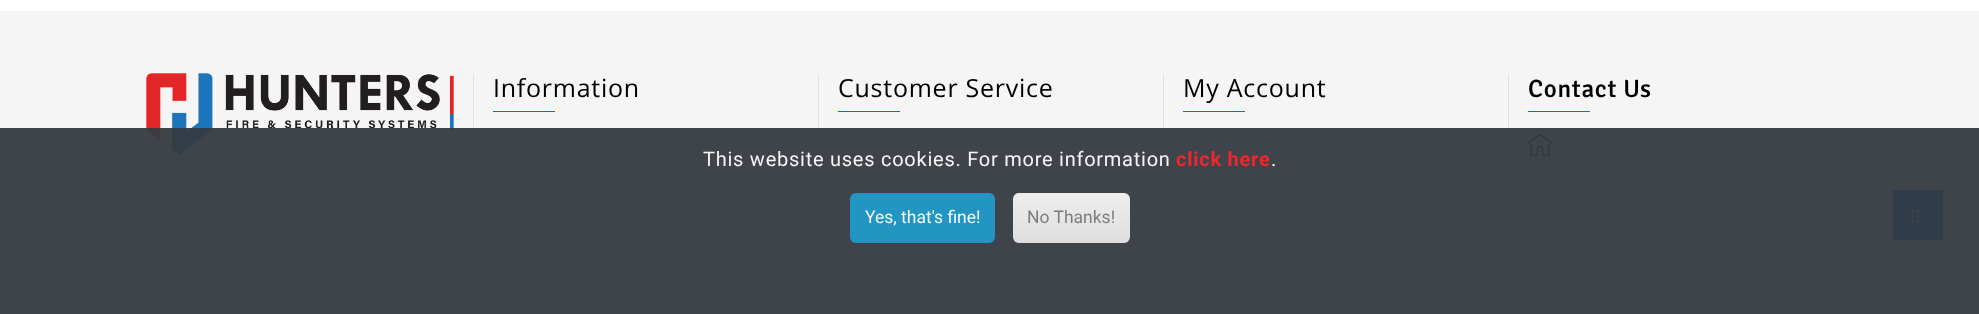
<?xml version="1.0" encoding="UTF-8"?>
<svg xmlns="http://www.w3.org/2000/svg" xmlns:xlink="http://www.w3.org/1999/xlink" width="1979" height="314">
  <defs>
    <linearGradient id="g1" gradientUnits="userSpaceOnUse" x1="1071" y1="193" x2="1071" y2="243"><stop offset="0" stop-color="#eeeeee" /><stop offset="1" stop-color="#dedede" /></linearGradient>
  </defs>
  <rect width="100%" height="100%" fill="#ffffff" />
  <rect y="11" width="1979" height="303" fill="#f5f5f5" />
  <image x="146" y="73" width="308" height="82" xlink:href="image1.png" />
  <rect x="473" y="74" width="1" height="240" fill="#e1e1e1" />
  <rect x="493" y="111" width="62" height="1" fill="#006cff" />
  <rect x="818" y="74" width="1" height="240" fill="#e1e1e1" />
  <rect x="838" y="111" width="62" height="1" fill="#006cff" />
  <rect x="1163" y="74" width="1" height="240" fill="#e1e1e1" />
  <rect x="1183" y="111" width="62" height="1" fill="#006cff" />
  <rect x="1508" y="74" width="1" height="240" fill="#e1e1e1" />
  <rect x="1528" y="111" width="62" height="1" fill="#006cff" />
  <image x="1528" y="133" width="25" height="24" xlink:href="image2.png" />
  <rect x="1893" y="190" width="50" height="50" fill="#006cff" />
  <image x="1911" y="210" width="8" height="13" xlink:href="image3.png" />
  <rect y="128" width="1979" height="186" fill="#343a40" fill-opacity="0.95" />
  <rect x="850" y="193" width="145" height="50" rx="6" fill="#229ac8" fill-opacity="0.95" />
  <rect x="1013" y="193" width="117" height="50" rx="6" fill="url(#g1)" />
  <text x="493" y="97" style="font-family: Open Sans; font-size: 25px; letter-spacing: 0.75px; fill: #000000">Information</text>
  <text x="838" y="97" style="font-family: Open Sans; font-size: 25px; letter-spacing: 0.75px; fill: #000000">Customer Service</text>
  <text x="1183" y="97" style="font-family: Open Sans; font-size: 25px; letter-spacing: 0.75px; fill: #000000">My Account</text>
  <text x="1528" y="97" style="font-family: Signika; font-size: 25px; font-weight: 500; letter-spacing: 0.75px; fill: #000000">Contact Us</text>
  <text x="703" y="166" style="font-family: Roboto; font-size: 20px; letter-spacing: 0.75px; fill: #f5f6f6">This website uses cookies. For more information</text>
  <text x="1176" y="166" style="font-family: Roboto; font-size: 20px; font-weight: bold; letter-spacing: 0.75px; fill: #ec272e">click here</text>
  <text x="1271" y="166" style="font-family: Roboto; font-size: 20px; letter-spacing: 0.75px; fill: #ffffff">.</text>
  <text x="865" y="223" style="font-family: Roboto; font-size: 17.5px; fill: #f4fafc">Yes, that's fine!</text>
  <text x="1027" y="223" style="font-family: Roboto; font-size: 17.5px; fill: #7d7d7d">No Thanks!</text>
</svg>
